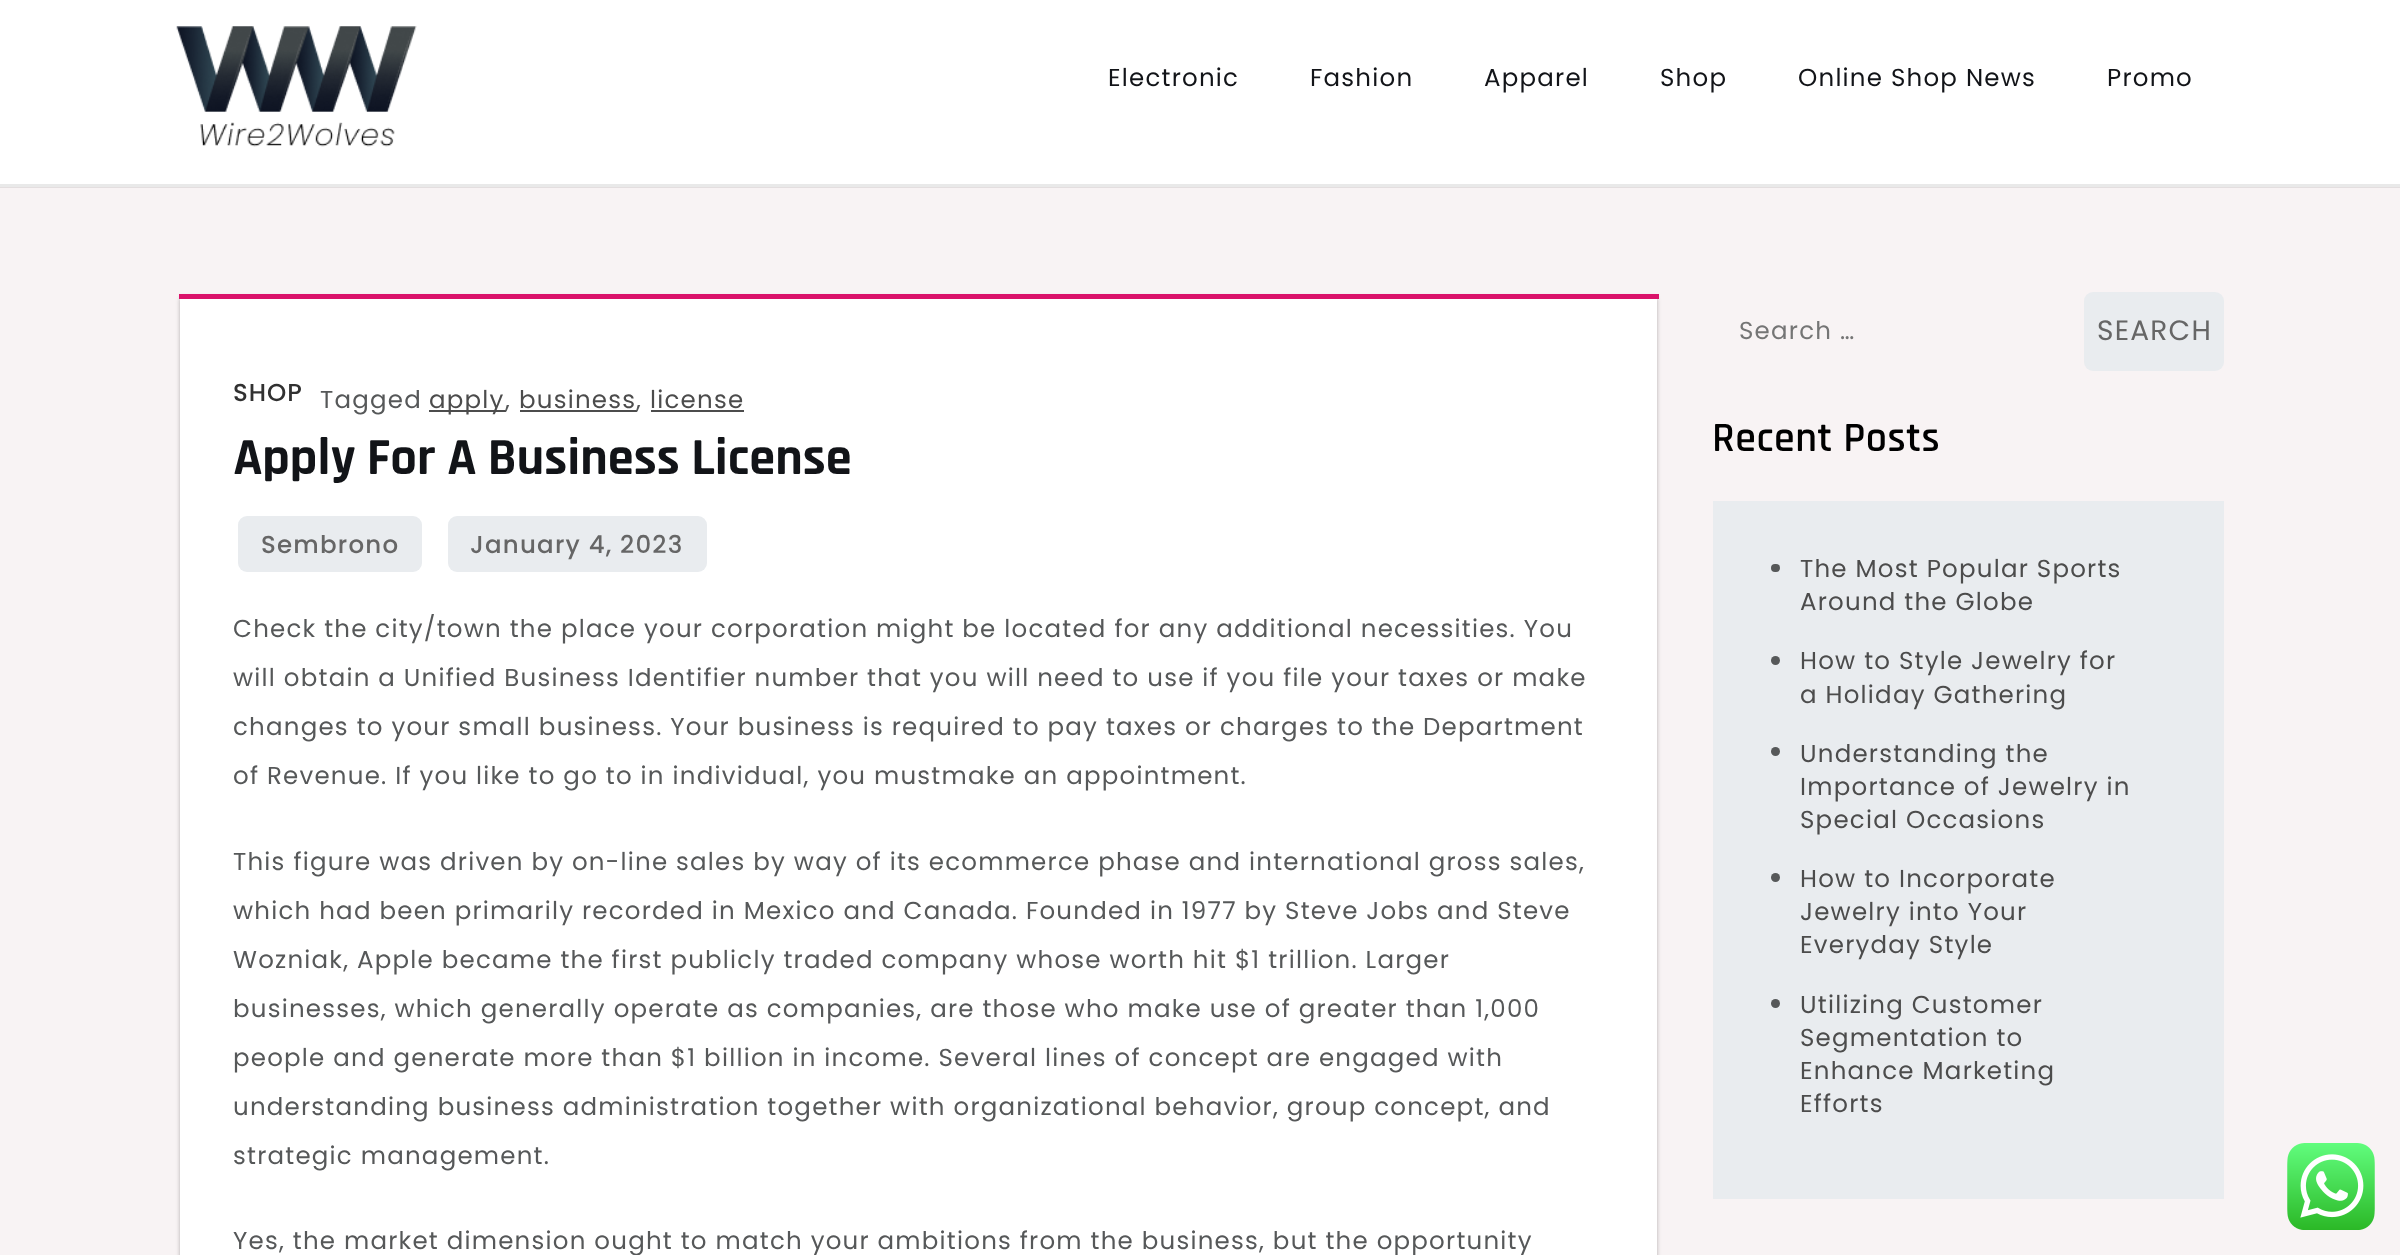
<?xml version="1.0" encoding="UTF-8"?>
<svg xmlns="http://www.w3.org/2000/svg" xmlns:xlink="http://www.w3.org/1999/xlink" width="2400" height="1255">
  <rect width="100%" height="100%" fill="#f8f3f4" />
  <rect y="187" width="2400" height="1" fill="#e3dedf" />
  <rect width="2400" height="184" fill="#ffffff" />
  <rect y="184" width="2400" height="3" fill="#e9e9e9" />
  <image x="176" y="26" width="241" height="121" xlink:href="image1.png" />
  <rect x="180" y="299" width="1477" height="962" fill="#000000" fill-opacity="0.18" filter="blur(2px)" />
  <rect x="180" y="296" width="1477" height="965" fill="#000000" fill-opacity="0.1" filter="blur(2px)" />
  <rect x="180" y="299" width="1477" height="956" fill="#ffffff" />
  <rect x="179" y="294" width="1480" height="5" fill="#da126a" />
  <rect x="429" y="410" width="77" height="2" fill="#4c4c4c" />
  <rect x="520" y="410" width="117" height="2" fill="#4c4c4c" />
  <rect x="651" y="410" width="93" height="2" fill="#4c4c4c" />
  <rect x="238" y="516" width="184" height="56" rx="9" fill="#e9ecef" />
  <rect x="448" y="516" width="259" height="56" rx="9" fill="#e9ecef" />
  <rect x="2084" y="292" width="140" height="79" rx="9" fill="#e9ecef" />
  <rect x="1713" y="501" width="511" height="698" fill="#e9ecef" />
  <rect x="1771" y="564" width="9" height="8" rx="4" fill="#565859" />
  <circle cx="1775.5" cy="660.5" r="4.5" fill="#565859" />
  <circle cx="1775.5" cy="751.5" r="4.5" fill="#565859" />
  <circle cx="1775.5" cy="877.5" r="4.5" fill="#565859" />
  <circle cx="1775.5" cy="1003.5" r="4.5" fill="#565859" />
  <image x="2287" y="1143" width="88" height="87" xlink:href="image2.png" />
  <text x="1108" y="86" style="font-family: Poppins; font-size: 24.5px; letter-spacing: 1.22px; fill: #121418">Electronic</text>
  <text x="1310" y="86" style="font-family: Poppins; font-size: 24.5px; letter-spacing: 1.22px; fill: #121418">Fashion</text>
  <text x="1484" y="86" style="font-family: Poppins; font-size: 24.5px; letter-spacing: 1.22px; fill: #121418">Apparel</text>
  <text x="1660" y="86" style="font-family: Poppins; font-size: 24.5px; letter-spacing: 1.22px; fill: #121418">Shop</text>
  <text x="1798" y="86" style="font-family: Poppins; font-size: 24.5px; letter-spacing: 1.22px; fill: #121418">Online Shop News</text>
  <text x="2107" y="86" style="font-family: Poppins; font-size: 24.5px; letter-spacing: 1.22px; fill: #121418">Promo</text>
  <text x="233" y="401" style="font-family: Poppins; font-size: 24.5px; font-weight: 500; letter-spacing: 1px; fill: #313131">SHOP</text>
  <text x="320" y="408" style="font-family: Poppins; font-size: 24.5px; letter-spacing: 1.22px; fill: #565859">Tagged</text>
  <text x="429" y="408" style="font-family: Poppins; font-size: 24.5px; letter-spacing: 1.22px; fill: #4c4c4c">apply</text>
  <text x="505" y="408" style="font-family: Poppins; font-size: 24.5px; letter-spacing: 1.22px; fill: #565859">,</text>
  <text x="519" y="408" style="font-family: Poppins; font-size: 24.5px; letter-spacing: 1.22px; fill: #4c4c4c">business</text>
  <text x="636" y="408" style="font-family: Poppins; font-size: 24.5px; letter-spacing: 1.22px; fill: #565859">,</text>
  <text x="650" y="408" style="font-family: Poppins; font-size: 24.5px; letter-spacing: 1.22px; fill: #4c4c4c">license</text>
  <text x="233" y="474" style="font-family: Rajdhani; font-size: 52.5px; font-weight: bold; fill: #121418">Apply For A Business License</text>
  <text x="261" y="553" style="font-family: Poppins; font-size: 24.5px; font-weight: 500; letter-spacing: 1.22px; fill: #666666">Sembrono</text>
  <text x="470" y="553" style="font-family: Poppins; font-size: 24.5px; font-weight: 500; letter-spacing: 1.22px; fill: #666666">January 4, 2023</text>
  <text x="233" y="637" style="font-family: Poppins; font-size: 24.5px; letter-spacing: 1.22px; fill: #565859">Check the city/town the place your corporation might be located for any additional necessities. You</text>
  <text x="233" y="686" style="font-family: Poppins; font-size: 24.5px; letter-spacing: 1.22px; fill: #565859">will obtain a Unified Business Identifier number that you will need to use if you file your taxes or make</text>
  <text x="233" y="735" style="font-family: Poppins; font-size: 24.5px; letter-spacing: 1.22px; fill: #565859">changes to your small business. Your business is required to pay taxes or charges to the Department</text>
  <text x="233" y="784" style="font-family: Poppins; font-size: 24.5px; letter-spacing: 1.22px; fill: #565859">of Revenue. If you like to go to in individual, you mustmake an appointment.</text>
  <text x="233" y="870" style="font-family: Poppins; font-size: 24.5px; letter-spacing: 1.22px; fill: #565859">This figure was driven by on-line sales by way of its ecommerce phase and international gross sales,</text>
  <text x="233" y="919" style="font-family: Poppins; font-size: 24.5px; letter-spacing: 1.22px; fill: #565859">which had been primarily recorded in Mexico and Canada. Founded in 1977 by Steve Jobs and Steve</text>
  <text x="233" y="968" style="font-family: Poppins; font-size: 24.5px; letter-spacing: 1.22px; fill: #565859">Wozniak, Apple became the first publicly traded company whose worth hit $1 trillion. Larger</text>
  <text x="233" y="1017" style="font-family: Poppins; font-size: 24.5px; letter-spacing: 1.22px; fill: #565859">businesses, which generally operate as companies, are those who make use of greater than 1,000</text>
  <text x="233" y="1066" style="font-family: Poppins; font-size: 24.5px; letter-spacing: 1.22px; fill: #565859">people and generate more than $1 billion in income. Several lines of concept are engaged with</text>
  <text x="233" y="1115" style="font-family: Poppins; font-size: 24.5px; letter-spacing: 1.22px; fill: #565859">understanding business administration together with organizational behavior, group concept, and</text>
  <text x="233" y="1164" style="font-family: Poppins; font-size: 24.5px; letter-spacing: 1.22px; fill: #565859">strategic management.</text>
  <text x="233" y="1249" style="font-family: Poppins; font-size: 24.5px; letter-spacing: 1.22px; fill: #565859">Yes, the market dimension ought to match your ambitions from the business, but the opportunity</text>
  <text x="1739" y="339" style="font-family: Poppins; font-size: 24.5px; letter-spacing: 1.22px; fill: #757575">Search …</text>
  <text x="2097" y="340" style="font-family: Poppins; font-size: 28px; letter-spacing: 1.22px; fill: #666666">SEARCH</text>
  <text x="1712" y="451" style="font-family: Rajdhani; font-size: 42px; font-weight: 600; letter-spacing: 0.5px; fill: #000000">Recent Posts</text>
  <text x="1800" y="577" style="font-family: Poppins; font-size: 24.5px; letter-spacing: 1.22px; fill: #4c4c4c">The Most Popular Sports</text>
  <text x="1800" y="610" style="font-family: Poppins; font-size: 24.5px; letter-spacing: 1.22px; fill: #4c4c4c">Around the Globe</text>
  <text x="1800" y="669" style="font-family: Poppins; font-size: 24.5px; letter-spacing: 1.22px; fill: #4c4c4c">How to Style Jewelry for</text>
  <text x="1800" y="703" style="font-family: Poppins; font-size: 24.5px; letter-spacing: 1.22px; fill: #4c4c4c">a Holiday Gathering</text>
  <text x="1800" y="762" style="font-family: Poppins; font-size: 24.5px; letter-spacing: 1.22px; fill: #4c4c4c">Understanding the</text>
  <text x="1800" y="795" style="font-family: Poppins; font-size: 24.5px; letter-spacing: 1.22px; fill: #4c4c4c">Importance of Jewelry in</text>
  <text x="1800" y="828" style="font-family: Poppins; font-size: 24.5px; letter-spacing: 1.22px; fill: #4c4c4c">Special Occasions</text>
  <text x="1800" y="887" style="font-family: Poppins; font-size: 24.5px; letter-spacing: 1.22px; fill: #4c4c4c">How to Incorporate</text>
  <text x="1800" y="920" style="font-family: Poppins; font-size: 24.5px; letter-spacing: 1.22px; fill: #4c4c4c">Jewelry into Your</text>
  <text x="1800" y="953" style="font-family: Poppins; font-size: 24.5px; letter-spacing: 1.22px; fill: #4c4c4c">Everyday Style</text>
  <text x="1800" y="1013" style="font-family: Poppins; font-size: 24.5px; letter-spacing: 1.22px; fill: #4c4c4c">Utilizing Customer</text>
  <text x="1800" y="1046" style="font-family: Poppins; font-size: 24.5px; letter-spacing: 1.22px; fill: #4c4c4c">Segmentation to</text>
  <text x="1800" y="1079" style="font-family: Poppins; font-size: 24.5px; letter-spacing: 1.22px; fill: #4c4c4c">Enhance Marketing</text>
  <text x="1800" y="1112" style="font-family: Poppins; font-size: 24.5px; letter-spacing: 1.22px; fill: #4c4c4c">Efforts</text>
</svg>
